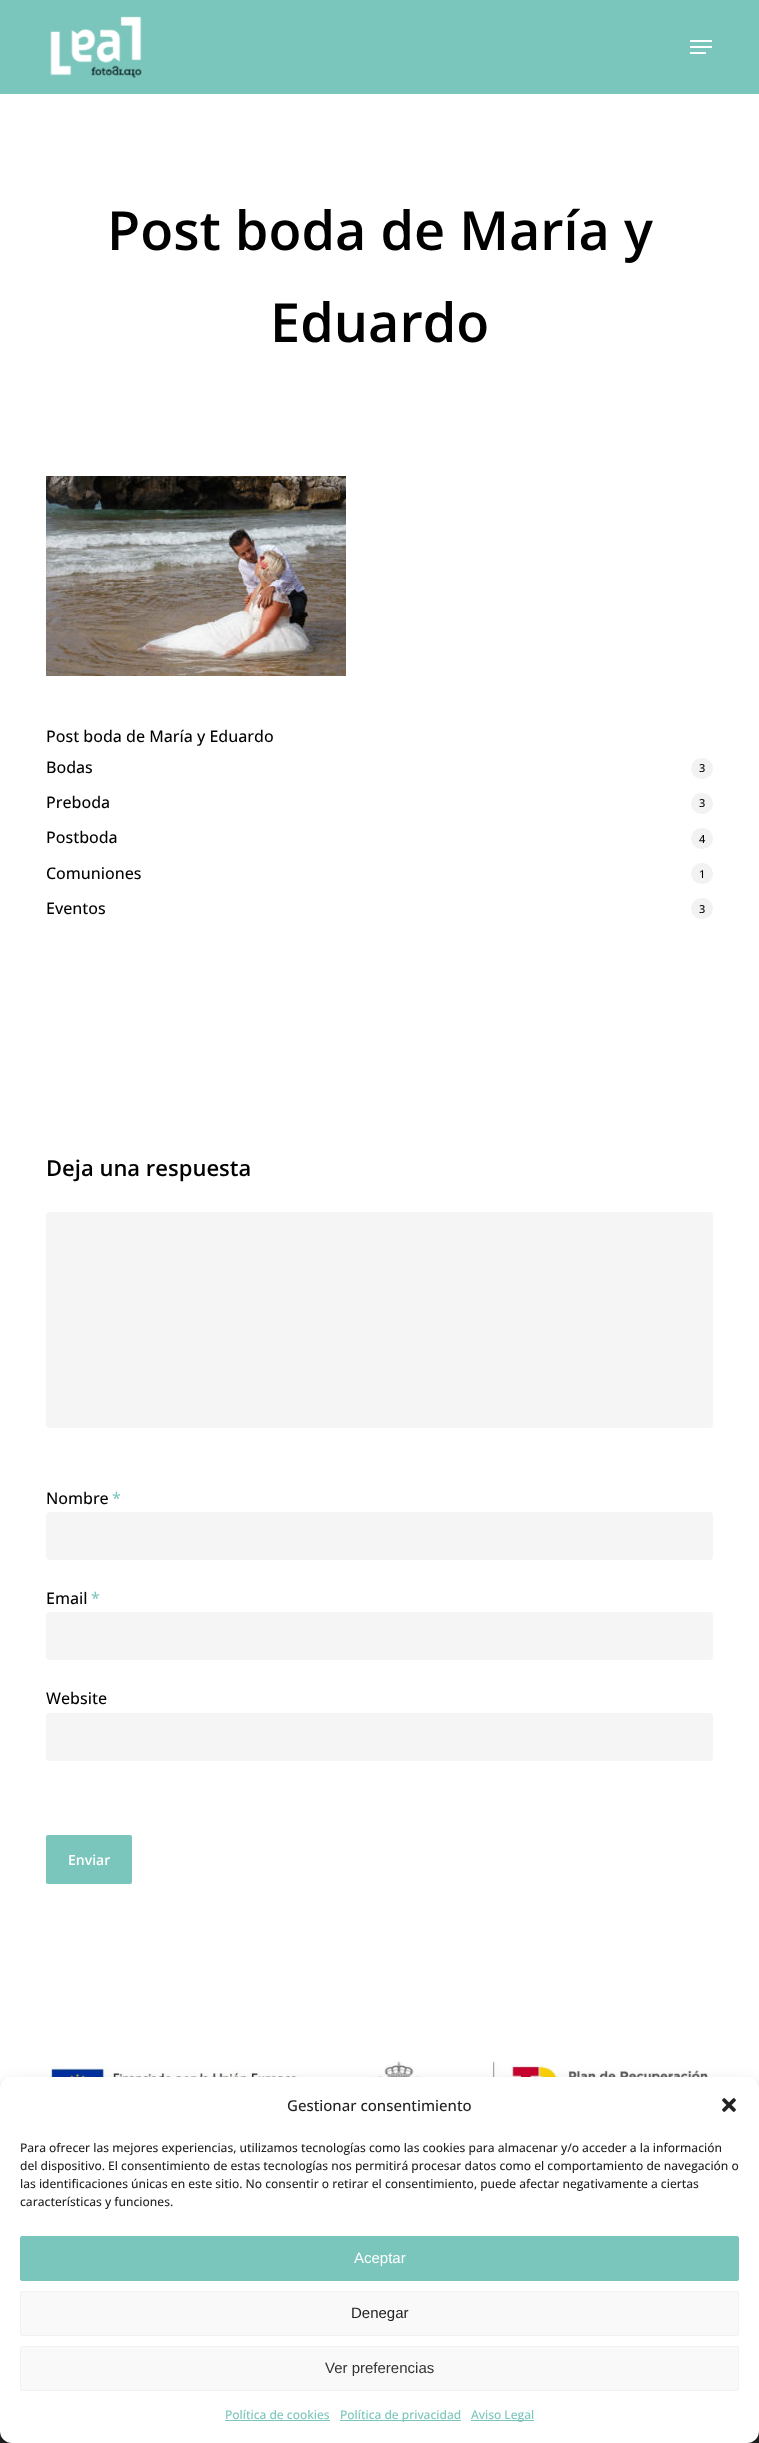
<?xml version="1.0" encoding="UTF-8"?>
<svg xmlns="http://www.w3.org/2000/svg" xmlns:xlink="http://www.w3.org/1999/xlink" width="759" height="2443">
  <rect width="100%" height="100%" fill="#ffffff" />
  <rect width="759" height="94" fill="#7bc6bc" />
  <image x="50" y="16" width="92" height="62" xlink:href="image1.png" />
  <rect x="690" y="40" width="22" height="2" fill="#ffffff" />
  <rect x="690" y="52" width="16" height="2" fill="#ffffff" />
  <rect x="690" y="46" width="22" height="2" fill="#ffffff" />
  <image x="46" y="476" width="300" height="200" xlink:href="image2.png" />
  <rect x="691" y="758" width="22" height="21" rx="10.5" fill="#f2f2f2" />
  <rect x="691" y="793" width="22" height="21" rx="10.5" fill="#f2f2f2" />
  <rect x="691" y="828" width="22" height="21" rx="10.5" fill="#f2f2f2" />
  <rect x="691" y="863" width="22" height="21" rx="10.5" fill="#f2f2f2" />
  <rect x="691" y="898" width="22" height="21" rx="10.5" fill="#f2f2f2" />
  <rect x="46" y="1212" width="667" height="216" rx="4" fill="#f5f5f5" />
  <rect x="46" y="1512" width="667" height="48" rx="4" fill="#f5f5f5" />
  <rect x="46" y="1612" width="667" height="48" rx="4" fill="#f5f5f5" />
  <rect x="46" y="1713" width="667" height="48" rx="4" fill="#f5f5f5" />
  <rect x="46" y="1835" width="86" height="49" rx="2" fill="#7bc6bc" />
  <image x="50" y="2061" width="661" height="16" xlink:href="image3.png" />
  <rect y="2431" width="759" height="12" fill="#272828" />
  <rect y="2083" width="759" height="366" rx="12" fill="#000000" fill-opacity="0.23" filter="blur(3px)" />
  <rect y="2087" width="759" height="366" rx="12" fill="#000000" fill-opacity="0.19" filter="blur(10px)" />
  <rect y="2077" width="759" height="366" rx="12" fill="#ffffff" />
  <image x="722" y="2098" width="14" height="14" xlink:href="image4.png" />
  <rect x="20.5" y="2236.5" width="718" height="44" rx="1.5" fill="#7bc6bc" stroke="#7bc6bc" />
  <rect x="20.5" y="2291.5" width="718" height="44" rx="1.5" fill="#f9f9f9" stroke="#f2f2f2" />
  <rect x="20.5" y="2346.5" width="718" height="44" rx="1.5" fill="#f9f9f9" stroke="#f2f2f2" />
  <rect x="225" y="2420" width="105" height="1" fill="#7bc6bc" />
  <rect x="340" y="2420" width="121" height="1" fill="#7bc6bc" />
  <rect x="471" y="2420" width="63" height="1" fill="#7bc6bc" />
  <text x="107" y="250" style="font-family: Open Sans; font-size: 54px; font-weight: 600; fill: #000000">Post boda de María y</text>
  <text x="270" y="342" style="font-family: Open Sans; font-size: 54px; font-weight: 600; fill: #000000">Eduardo</text>
  <text x="46" y="742" style="font-family: Open Sans; font-size: 16px; font-weight: 500; fill: #000000">Post boda de María y Eduardo</text>
  <text x="46" y="773" style="font-family: Open Sans; font-size: 16px; font-weight: 500; fill: #000000">Bodas</text>
  <text x="699" y="772" style="font-family: Open Sans; font-size: 11px; font-weight: 500; fill: #000000">3</text>
  <text x="46" y="808" style="font-family: Open Sans; font-size: 16px; font-weight: 500; fill: #000000">Preboda</text>
  <text x="699" y="807" style="font-family: Open Sans; font-size: 11px; font-weight: 500; fill: #000000">3</text>
  <text x="46" y="843" style="font-family: Open Sans; font-size: 16px; font-weight: 500; fill: #000000">Postboda</text>
  <text x="699" y="843" style="font-family: Open Sans; font-size: 11px; font-weight: 500; fill: #000000">4</text>
  <text x="46" y="879" style="font-family: Open Sans; font-size: 16px; font-weight: 500; fill: #000000">Comuniones</text>
  <text x="699" y="878" style="font-family: Open Sans; font-size: 11px; font-weight: 500; fill: #000000">1</text>
  <text x="46" y="914" style="font-family: Open Sans; font-size: 16px; font-weight: 500; fill: #000000">Eventos</text>
  <text x="699" y="913" style="font-family: Open Sans; font-size: 11px; font-weight: 500; fill: #000000">3</text>
  <text x="46" y="1176" style="font-family: Open Sans; font-size: 22px; font-weight: 600; fill: #000000">Deja una respuesta</text>
  <text x="46" y="1504" style="font-family: Open Sans; font-size: 16px; font-weight: 500; fill: #000000">Nombre</text>
  <text x="112" y="1504" style="font-family: Open Sans; font-size: 16px; font-weight: 500; fill: #7bc6bc">*</text>
  <text x="46" y="1604" style="font-family: Open Sans; font-size: 16px; font-weight: 500; fill: #000000">Email</text>
  <text x="91" y="1604" style="font-family: Open Sans; font-size: 16px; font-weight: 500; fill: #7bc6bc">*</text>
  <text x="46" y="1704" style="font-family: Open Sans; font-size: 16px; font-weight: 500; fill: #000000">Website</text>
  <text x="68" y="1865" style="font-family: Open Sans; font-size: 14px; font-weight: 600; fill: #ffffff">Enviar</text>
  <text x="287" y="2111" style="font-family: Open Sans; font-size: 15px; font-weight: 500; fill: #222222">Gestionar consentimiento</text>
  <text x="20" y="2152" style="font-family: Open Sans; font-size: 12px; font-weight: 500; fill: #222222">Para ofrecer las mejores experiencias, utilizamos tecnologías como las cookies para almacenar y/o acceder a la información</text>
  <text x="20" y="2170" style="font-family: Open Sans; font-size: 12px; font-weight: 500; fill: #222222">del dispositivo. El consentimiento de estas tecnologías nos permitirá procesar datos como el comportamiento de navegación o</text>
  <text x="20" y="2188" style="font-family: Open Sans; font-size: 12px; font-weight: 500; fill: #222222">las identificaciones únicas en este sitio. No consentir o retirar el consentimiento, puede afectar negativamente a ciertas</text>
  <text x="20" y="2206" style="font-family: Open Sans; font-size: 12px; font-weight: 500; fill: #222222">características y funciones.</text>
  <text x="354" y="2263" style="font-family: Liberation Sans; font-size: 15px; fill: #ffffff">Aceptar</text>
  <text x="351" y="2318" style="font-family: Liberation Sans; font-size: 15px; fill: #222222">Denegar</text>
  <text x="325" y="2373" style="font-family: Liberation Sans; font-size: 15px; fill: #333333">Ver preferencias</text>
  <text x="225" y="2419" style="font-family: Open Sans; font-size: 12px; font-weight: 500; fill: #7bc6bc">Política de cookies</text>
  <text x="340" y="2419" style="font-family: Open Sans; font-size: 12px; font-weight: 500; fill: #7bc6bc">Política de privacidad</text>
  <text x="471" y="2419" style="font-family: Open Sans; font-size: 12px; font-weight: 500; fill: #7bc6bc">Aviso Legal</text>
</svg>
